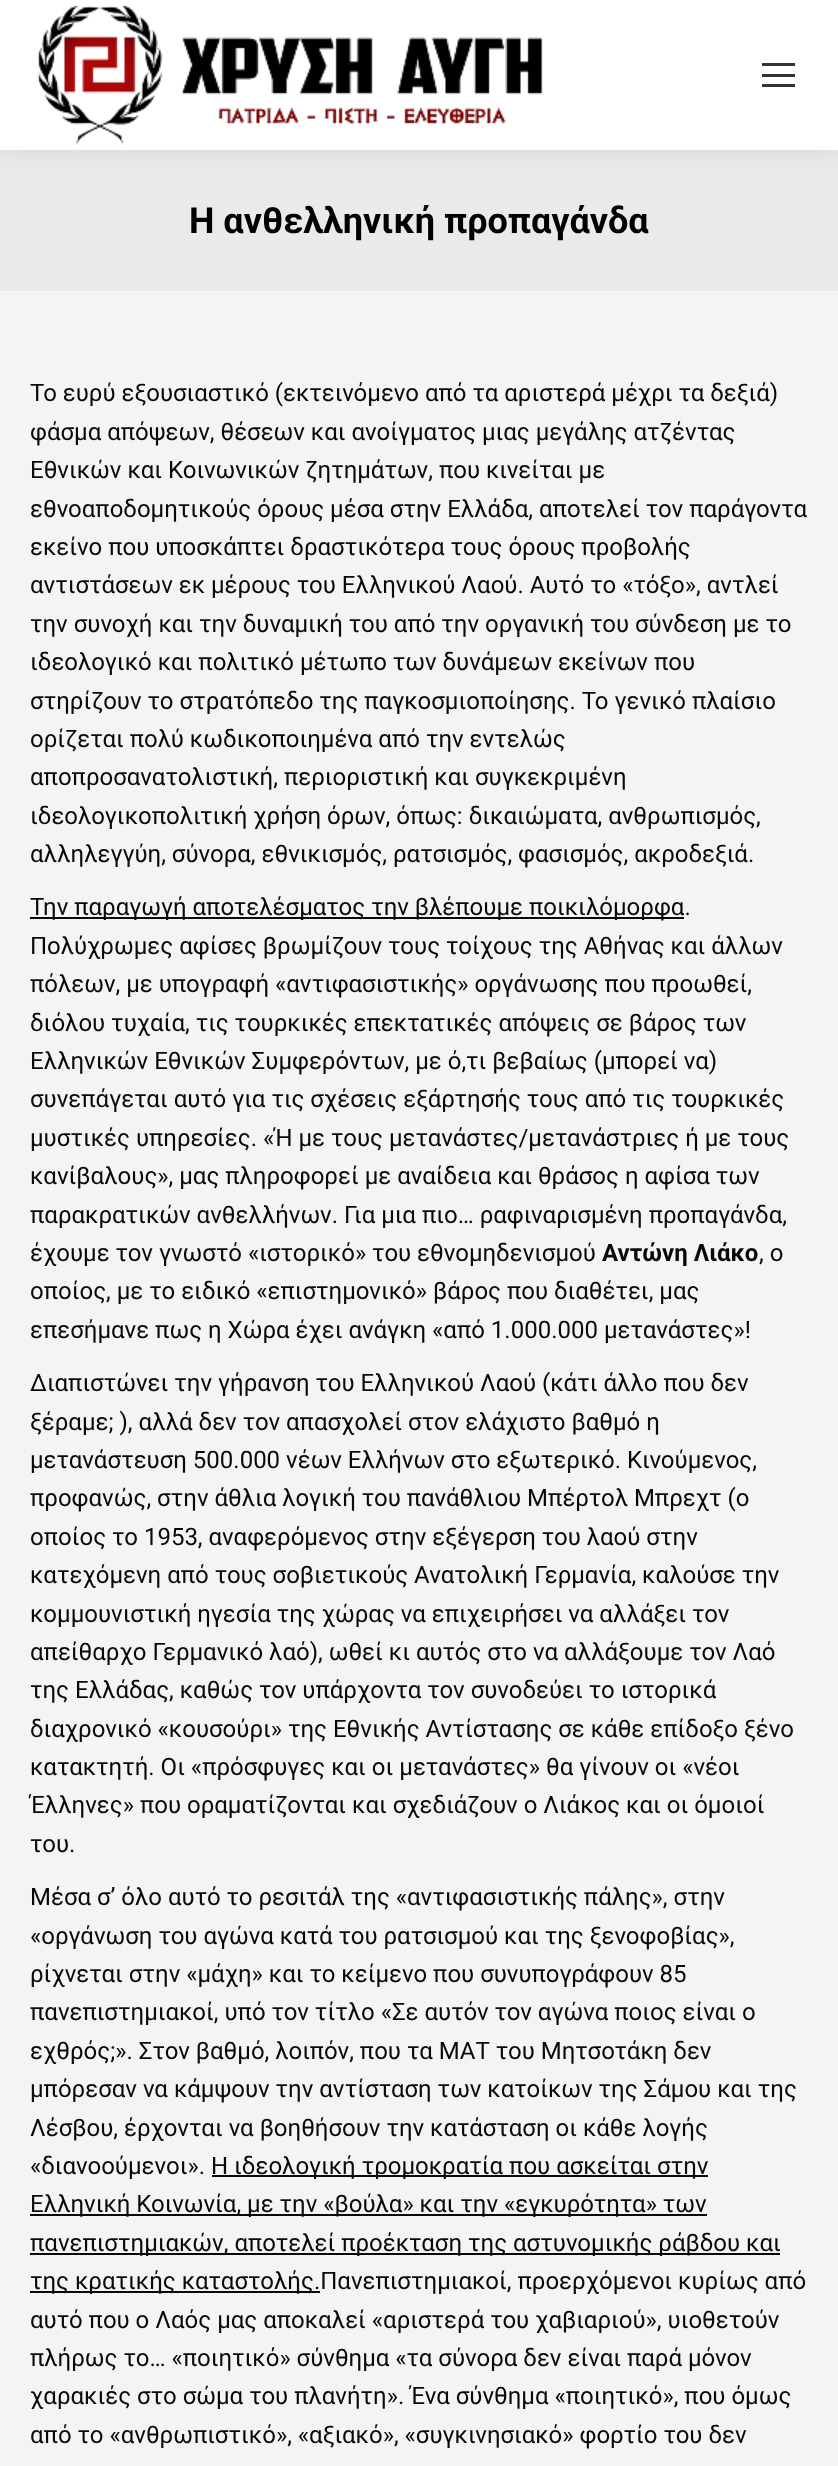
<?xml version="1.0" encoding="UTF-8"?>
<svg xmlns="http://www.w3.org/2000/svg" xmlns:xlink="http://www.w3.org/1999/xlink" width="838" height="2466">
  <rect width="100%" height="100%" fill="#f4f4f4" />
  <rect y="150" width="838" height="141" fill="#eaeaea" />
  <rect x="-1" y="-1" width="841" height="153" fill="#000000" fill-opacity="0.07" filter="blur(11px)" />
  <rect width="838" height="150" fill="#ffffff" />
  <image x="37" y="5" width="506" height="140" xlink:href="image1.png" />
  <rect x="762" y="63" width="33" height="3" fill="#333333" />
  <rect x="762" y="74" width="33" height="3" fill="#333333" />
  <rect x="762" y="84" width="33" height="3" fill="#333333" />
  <rect x="30" y="917" width="654" height="2" fill="#0a0909" />
  <rect x="212" y="2175" width="496" height="2" fill="#0a0909" />
  <rect x="30" y="2214" width="677" height="2" fill="#0a0909" />
  <rect x="30" y="2253" width="750" height="2" fill="#0a0909" />
  <rect x="30" y="2291" width="290" height="2" fill="#0a0909" />
  <text x="189" y="233" style="font-family: Roboto; font-size: 36px; font-weight: bold; fill: #020202">Η ανθελληνική προπαγάνδα</text>
  <text x="30" y="401" style="font-family: Roboto; font-size: 24px; fill: #0a0909">Το ευρύ εξουσιαστικό (εκτεινόμενο από τα αριστερά μέχρι τα δεξιά)</text>
  <text x="30" y="440" style="font-family: Roboto; font-size: 24px; fill: #0a0909">φάσμα απόψεων, θέσεων και ανοίγματος μιας μεγάλης ατζέντας</text>
  <text x="30" y="478" style="font-family: Roboto; font-size: 24px; fill: #0a0909">Εθνικών και Κοινωνικών ζητημάτων, που κινείται με</text>
  <text x="30" y="517" style="font-family: Roboto; font-size: 24px; fill: #0a0909">εθνοαποδομητικούς όρους μέσα στην Ελλάδα, αποτελεί τον παράγοντα</text>
  <text x="30" y="555" style="font-family: Roboto; font-size: 24px; fill: #0a0909">εκείνο που υποσκάπτει δραστικότερα τους όρους προβολής</text>
  <text x="30" y="593" style="font-family: Roboto; font-size: 24px; fill: #0a0909">αντιστάσεων εκ μέρους του Ελληνικού Λαού. Αυτό το «τόξο», αντλεί</text>
  <text x="30" y="632" style="font-family: Roboto; font-size: 24px; fill: #0a0909">την συνοχή και την δυναμική του από την οργανική του σύνδεση με το</text>
  <text x="30" y="670" style="font-family: Roboto; font-size: 24px; fill: #0a0909">ιδεολογικό και πολιτικό μέτωπο των δυνάμεων εκείνων που</text>
  <text x="30" y="709" style="font-family: Roboto; font-size: 24px; fill: #0a0909">στηρίζουν το στρατόπεδο της παγκοσμιοποίησης. Το γενικό πλαίσιο</text>
  <text x="30" y="747" style="font-family: Roboto; font-size: 24px; fill: #0a0909">ορίζεται πολύ κωδικοποιημένα από την εντελώς</text>
  <text x="30" y="785" style="font-family: Roboto; font-size: 24px; fill: #0a0909">αποπροσανατολιστική, περιοριστική και συγκεκριμένη</text>
  <text x="30" y="824" style="font-family: Roboto; font-size: 24px; fill: #0a0909">ιδεολογικοπολιτική χρήση όρων, όπως: δικαιώματα, ανθρωπισμός,</text>
  <text x="30" y="862" style="font-family: Roboto; font-size: 24px; fill: #0a0909">αλληλεγγύη, σύνορα, εθνικισμός, ρατσισμός, φασισμός, ακροδεξιά.</text>
  <text x="30" y="915" style="font-family: Roboto; font-size: 24px; fill: #0a0909">Την παραγωγή αποτελέσματος την βλέπουμε ποικιλόμορφα.</text>
  <text x="30" y="954" style="font-family: Roboto; font-size: 24px; fill: #0a0909">Πολύχρωμες αφίσες βρωμίζουν τους τοίχους της Αθήνας και άλλων</text>
  <text x="30" y="992" style="font-family: Roboto; font-size: 24px; fill: #0a0909">πόλεων, με υπογραφή «αντιφασιστικής» οργάνωσης που προωθεί,</text>
  <text x="30" y="1031" style="font-family: Roboto; font-size: 24px; fill: #0a0909">διόλου τυχαία, τις τουρκικές επεκτατικές απόψεις σε βάρος των</text>
  <text x="30" y="1069" style="font-family: Roboto; font-size: 24px; fill: #0a0909">Ελληνικών Εθνικών Συμφερόντων, με ό,τι βεβαίως (μπορεί να)</text>
  <text x="30" y="1107" style="font-family: Roboto; font-size: 24px; fill: #0a0909">συνεπάγεται αυτό για τις σχέσεις εξάρτησής τους από τις τουρκικές</text>
  <text x="30" y="1146" style="font-family: Roboto; font-size: 24px; fill: #0a0909">μυστικές υπηρεσίες. «Ή με τους μετανάστες/μετανάστριες ή με τους</text>
  <text x="30" y="1184" style="font-family: Roboto; font-size: 24px; fill: #0a0909">κανίβαλους», μας πληροφορεί με αναίδεια και θράσος η αφίσα των</text>
  <text x="30" y="1223" style="font-family: Roboto; font-size: 24px; fill: #0a0909">παρακρατικών ανθελλήνων. Για μια πιο… ραφιναρισμένη προπαγάνδα,</text>
  <text x="30" y="1261" style="font-family: Roboto; font-size: 24px; fill: #0a0909">έχουμε τον γνωστό «ιστορικό» του εθνομηδενισμού</text>
  <text x="602" y="1261" style="font-family: Roboto; font-size: 24px; font-weight: bold; fill: #0a0909">Αντώνη Λιάκο</text>
  <text x="759" y="1261" style="font-family: Roboto; font-size: 24px; fill: #0a0909">, ο</text>
  <text x="30" y="1299" style="font-family: Roboto; font-size: 24px; fill: #0a0909">οποίος, με το ειδικό «επιστημονικό» βάρος που διαθέτει, μας</text>
  <text x="30" y="1338" style="font-family: Roboto; font-size: 24px; fill: #0a0909">επεσήμανε πως η Χώρα έχει ανάγκη «από 1.000.000 μετανάστες»!</text>
  <text x="30" y="1391" style="font-family: Roboto; font-size: 24px; fill: #0a0909">Διαπιστώνει την γήρανση του Ελληνικού Λαού (κάτι άλλο που δεν</text>
  <text x="30" y="1430" style="font-family: Roboto; font-size: 24px; fill: #0a0909">ξέραμε; ), αλλά δεν τον απασχολεί στον ελάχιστο βαθμό η</text>
  <text x="30" y="1468" style="font-family: Roboto; font-size: 24px; fill: #0a0909">μετανάστευση 500.000 νέων Ελλήνων στο εξωτερικό. Κινούμενος,</text>
  <text x="30" y="1506" style="font-family: Roboto; font-size: 24px; fill: #0a0909">προφανώς, στην άθλια λογική του πανάθλιου Μπέρτολ Μπρεχτ (ο</text>
  <text x="30" y="1545" style="font-family: Roboto; font-size: 24px; fill: #0a0909">οποίος το 1953, αναφερόμενος στην εξέγερση του λαού στην</text>
  <text x="30" y="1583" style="font-family: Roboto; font-size: 24px; fill: #0a0909">κατεχόμενη από τους σοβιετικούς Ανατολική Γερμανία, καλούσε την</text>
  <text x="30" y="1622" style="font-family: Roboto; font-size: 24px; fill: #0a0909">κομμουνιστική ηγεσία της χώρας να επιχειρήσει να αλλάξει τον</text>
  <text x="30" y="1660" style="font-family: Roboto; font-size: 24px; fill: #0a0909">απείθαρχο Γερμανικό λαό), ωθεί κι αυτός στο να αλλάξουμε τον Λαό</text>
  <text x="30" y="1698" style="font-family: Roboto; font-size: 24px; fill: #0a0909">της Ελλάδας, καθώς τον υπάρχοντα τον συνοδεύει το ιστορικά</text>
  <text x="30" y="1737" style="font-family: Roboto; font-size: 24px; fill: #0a0909">διαχρονικό «κουσούρι» της Εθνικής Αντίστασης σε κάθε επίδοξο ξένο</text>
  <text x="30" y="1775" style="font-family: Roboto; font-size: 24px; fill: #0a0909">κατακτητή. Οι «πρόσφυγες και οι μετανάστες» θα γίνουν οι «νέοι</text>
  <text x="30" y="1813" style="font-family: Roboto; font-size: 24px; fill: #0a0909">Έλληνες» που οραματίζονται και σχεδιάζουν ο Λιάκος και οι όμοιοί</text>
  <text x="30" y="1852" style="font-family: Roboto; font-size: 24px; fill: #0a0909">του.</text>
  <text x="30" y="1905" style="font-family: Roboto; font-size: 24px; fill: #0a0909">Μέσα σ’ όλο αυτό το ρεσιτάλ της «αντιφασιστικής πάλης», στην</text>
  <text x="30" y="1944" style="font-family: Roboto; font-size: 24px; fill: #0a0909">«οργάνωση του αγώνα κατά του ρατσισμού και της ξενοφοβίας»,</text>
  <text x="30" y="1982" style="font-family: Roboto; font-size: 24px; fill: #0a0909">ρίχνεται στην «μάχη» και το κείμενο που συνυπογράφουν 85</text>
  <text x="30" y="2020" style="font-family: Roboto; font-size: 24px; fill: #0a0909">πανεπιστημιακοί, υπό τον τίτλο «Σε αυτόν τον αγώνα ποιος είναι ο</text>
  <text x="30" y="2059" style="font-family: Roboto; font-size: 24px; fill: #0a0909">εχθρός;». Στον βαθμό, λοιπόν, που τα ΜΑΤ του Μητσοτάκη δεν</text>
  <text x="30" y="2097" style="font-family: Roboto; font-size: 24px; fill: #0a0909">μπόρεσαν να κάμψουν την αντίσταση των κατοίκων της Σάμου και της</text>
  <text x="30" y="2136" style="font-family: Roboto; font-size: 24px; fill: #0a0909">Λέσβου, έρχονται να βοηθήσουν την κατάσταση οι κάθε λογής</text>
  <text x="30" y="2174" style="font-family: Roboto; font-size: 24px; fill: #0a0909">«διανοούμενοι».</text>
  <text x="211" y="2174" style="font-family: Roboto; font-size: 24px; fill: #0a0909">Η ιδεολογική τρομοκρατία που ασκείται στην</text>
  <text x="30" y="2212" style="font-family: Roboto; font-size: 24px; fill: #0a0909">Ελληνική Κοινωνία, με την «βούλα» και την «εγκυρότητα» των</text>
  <text x="30" y="2251" style="font-family: Roboto; font-size: 24px; fill: #0a0909">πανεπιστημιακών, αποτελεί προέκταση της αστυνομικής ράβδου και</text>
  <text x="30" y="2289" style="font-family: Roboto; font-size: 24px; fill: #0a0909">της κρατικής καταστολής.Πανεπιστημιακοί, προερχόμενοι κυρίως από</text>
  <text x="30" y="2328" style="font-family: Roboto; font-size: 24px; fill: #0a0909">αυτό που ο Λαός μας αποκαλεί «αριστερά του χαβιαριού», υιοθετούν</text>
  <text x="30" y="2366" style="font-family: Roboto; font-size: 24px; fill: #0a0909">πλήρως το… «ποιητικό» σύνθημα «τα σύνορα δεν είναι παρά μόνον</text>
  <text x="30" y="2404" style="font-family: Roboto; font-size: 24px; fill: #0a0909">χαρακιές στο σώμα του πλανήτη». Ένα σύνθημα «ποιητικό», που όμως</text>
  <text x="30" y="2443" style="font-family: Roboto; font-size: 24px; fill: #0a0909">από το «ανθρωπιστικό», «αξιακό», «συγκινησιακό» φορτίο του δεν</text>
</svg>
